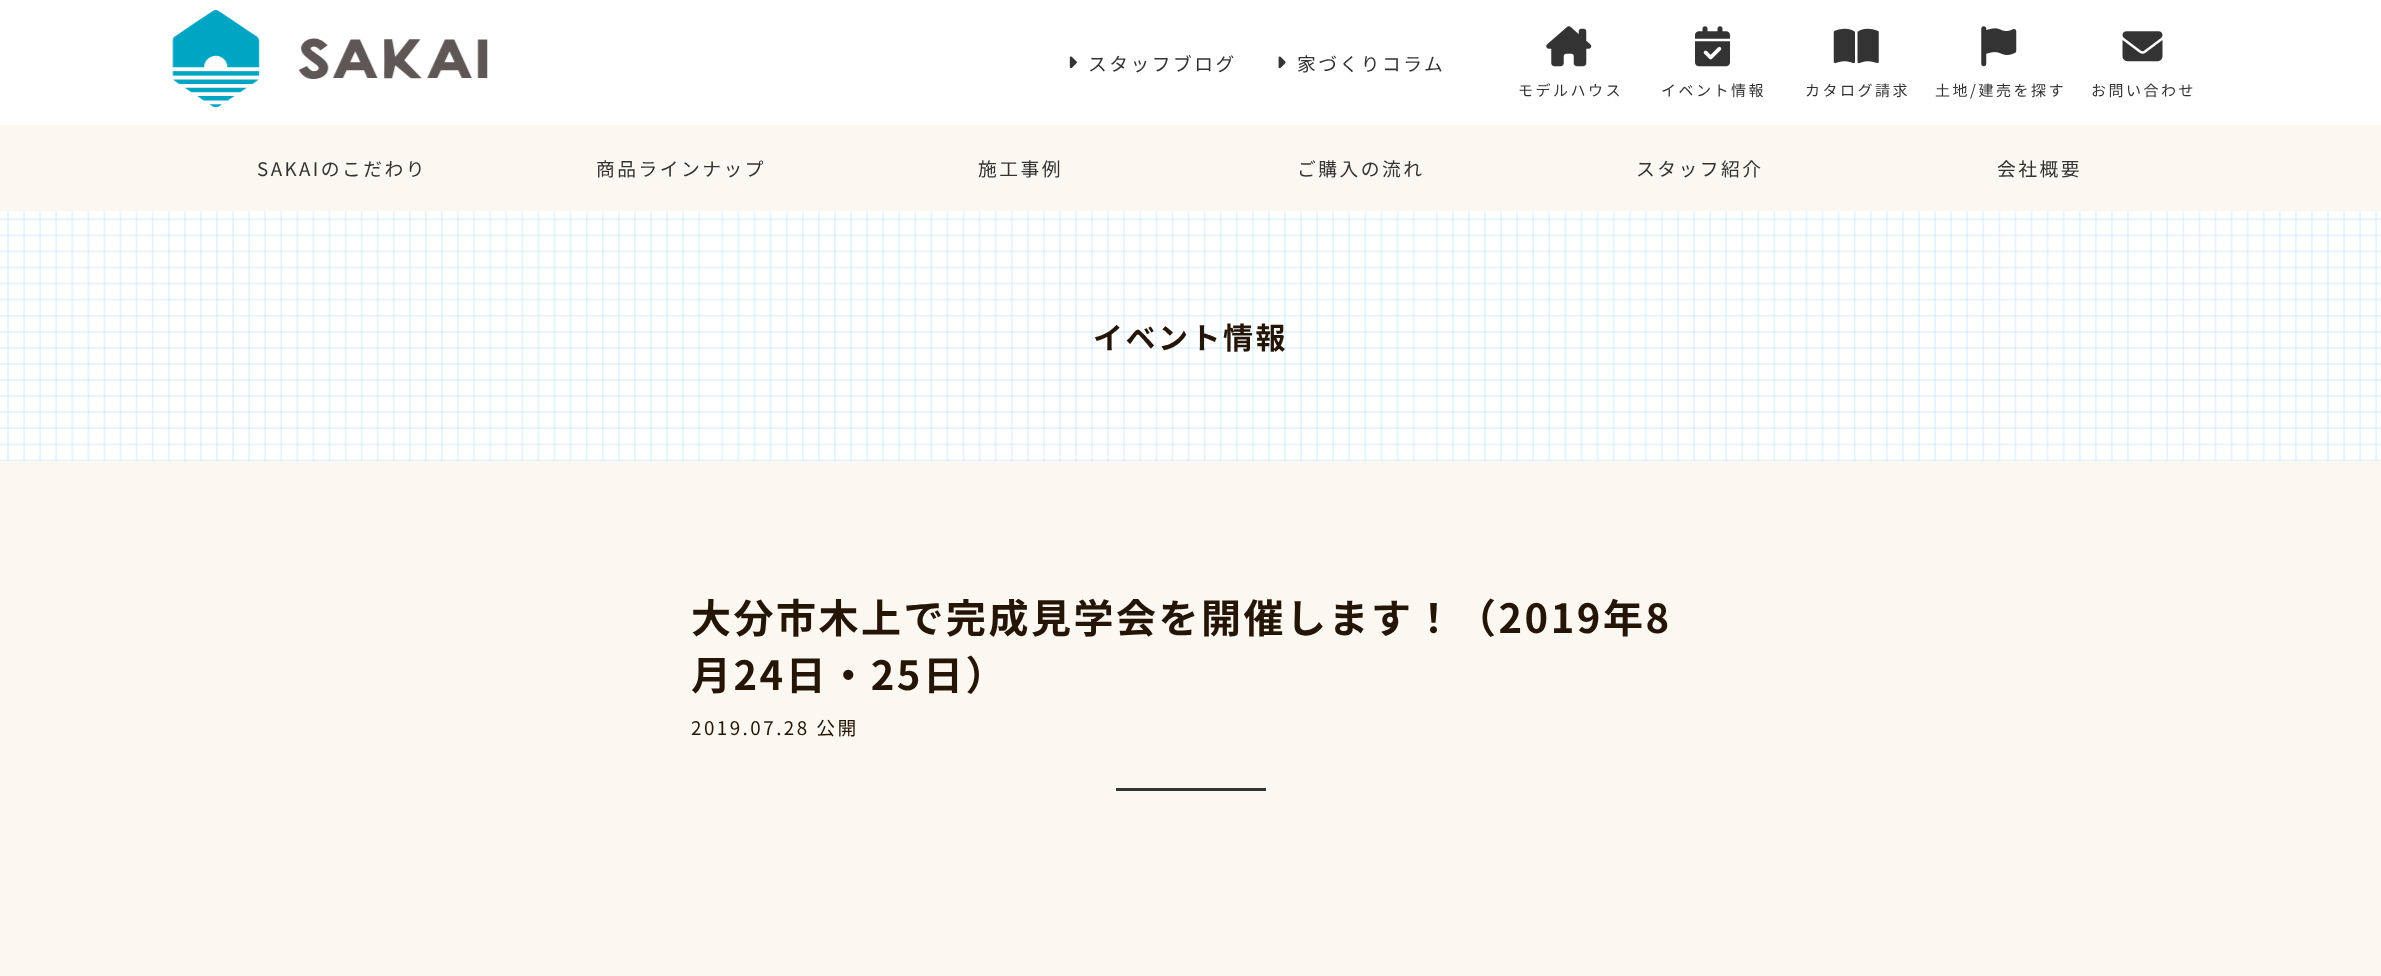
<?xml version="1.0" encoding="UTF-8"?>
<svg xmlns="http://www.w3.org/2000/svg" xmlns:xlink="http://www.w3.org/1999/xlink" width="2381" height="976">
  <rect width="100%" height="100%" fill="#fbf8f1" />
  <rect width="2381" height="125" fill="#ffffff" />
  <image x="172" y="10" width="316" height="98" xlink:href="image1.png" />
  <image x="1069" y="56" width="8" height="13" xlink:href="image2.png" />
  <image x="1278" y="56" width="8" height="13" xlink:href="image3.png" />
  <image x="1546" y="26" width="46" height="41" xlink:href="image4.png" />
  <image x="1695" y="26" width="35" height="41" xlink:href="image5.png" />
  <image x="1833" y="28" width="46" height="36" xlink:href="image6.png" />
  <image x="1981" y="26" width="36" height="41" xlink:href="image7.png" />
  <image x="2122" y="31" width="41" height="31" xlink:href="image8.png" />
  <image x="0" y="211" width="2381" height="251" xlink:href="image9.png" />
  <rect x="1116" y="788" width="150" height="3" fill="#333333" />
  <text x="1088" y="71" style="font-family: Noto Sans JP; font-size: 18.75px; letter-spacing: 2.5px; fill: #333333">スタッフブログ</text>
  <text x="1297" y="71" style="font-family: Noto Sans JP; font-size: 18.75px; letter-spacing: 2.5px; fill: #333333">家づくりコラム</text>
  <text x="1518" y="96" style="font-family: Noto Sans JP; font-size: 15px; letter-spacing: 2.5px; fill: #333333">モデルハウス</text>
  <text x="1661" y="96" style="font-family: Noto Sans JP; font-size: 15px; letter-spacing: 2.5px; fill: #333333">イベント情報</text>
  <text x="1805" y="96" style="font-family: Noto Sans JP; font-size: 15px; letter-spacing: 2.5px; fill: #333333">カタログ請求</text>
  <text x="1935" y="96" style="font-family: Noto Sans JP; font-size: 15px; letter-spacing: 2.5px; fill: #333333">土地/建売を探す</text>
  <text x="2091" y="96" style="font-family: Noto Sans JP; font-size: 15px; letter-spacing: 2.5px; fill: #333333">お問い合わせ</text>
  <text x="257" y="176" style="font-family: Noto Sans JP; font-size: 18.75px; letter-spacing: 2.5px; fill: #333333">SAKAIのこだわり</text>
  <text x="596" y="176" style="font-family: Noto Sans JP; font-size: 18.75px; letter-spacing: 2.5px; fill: #333333">商品ラインナップ</text>
  <text x="978" y="176" style="font-family: Noto Sans JP; font-size: 18.75px; letter-spacing: 2.5px; fill: #333333">施工事例</text>
  <text x="1297" y="176" style="font-family: Noto Sans JP; font-size: 18.75px; letter-spacing: 2.5px; fill: #333333">ご購入の流れ</text>
  <text x="1636" y="176" style="font-family: Noto Sans JP; font-size: 18.75px; letter-spacing: 2.5px; fill: #333333">スタッフ紹介</text>
  <text x="1997" y="176" style="font-family: Noto Sans JP; font-size: 18.75px; letter-spacing: 2.5px; fill: #333333">会社概要</text>
  <text x="1093" y="349" style="font-family: Noto Sans JP; font-size: 30px; font-weight: bold; letter-spacing: 2.5px; fill: #241506">イベント情報</text>
  <text x="691" y="633" style="font-family: Noto Sans JP; font-size: 40px; font-weight: bold; letter-spacing: 2.5px; fill: #241506">大分市木上で完成見学会を開催します！（2019年8</text>
  <text x="691" y="690" style="font-family: Noto Sans JP; font-size: 40px; font-weight: bold; letter-spacing: 2.5px; fill: #241506">月24日・25日）</text>
  <text x="691" y="735" style="font-family: Noto Sans JP; font-size: 18.75px; letter-spacing: 2.5px; fill: #241506">2019.07.28 公開</text>
</svg>
